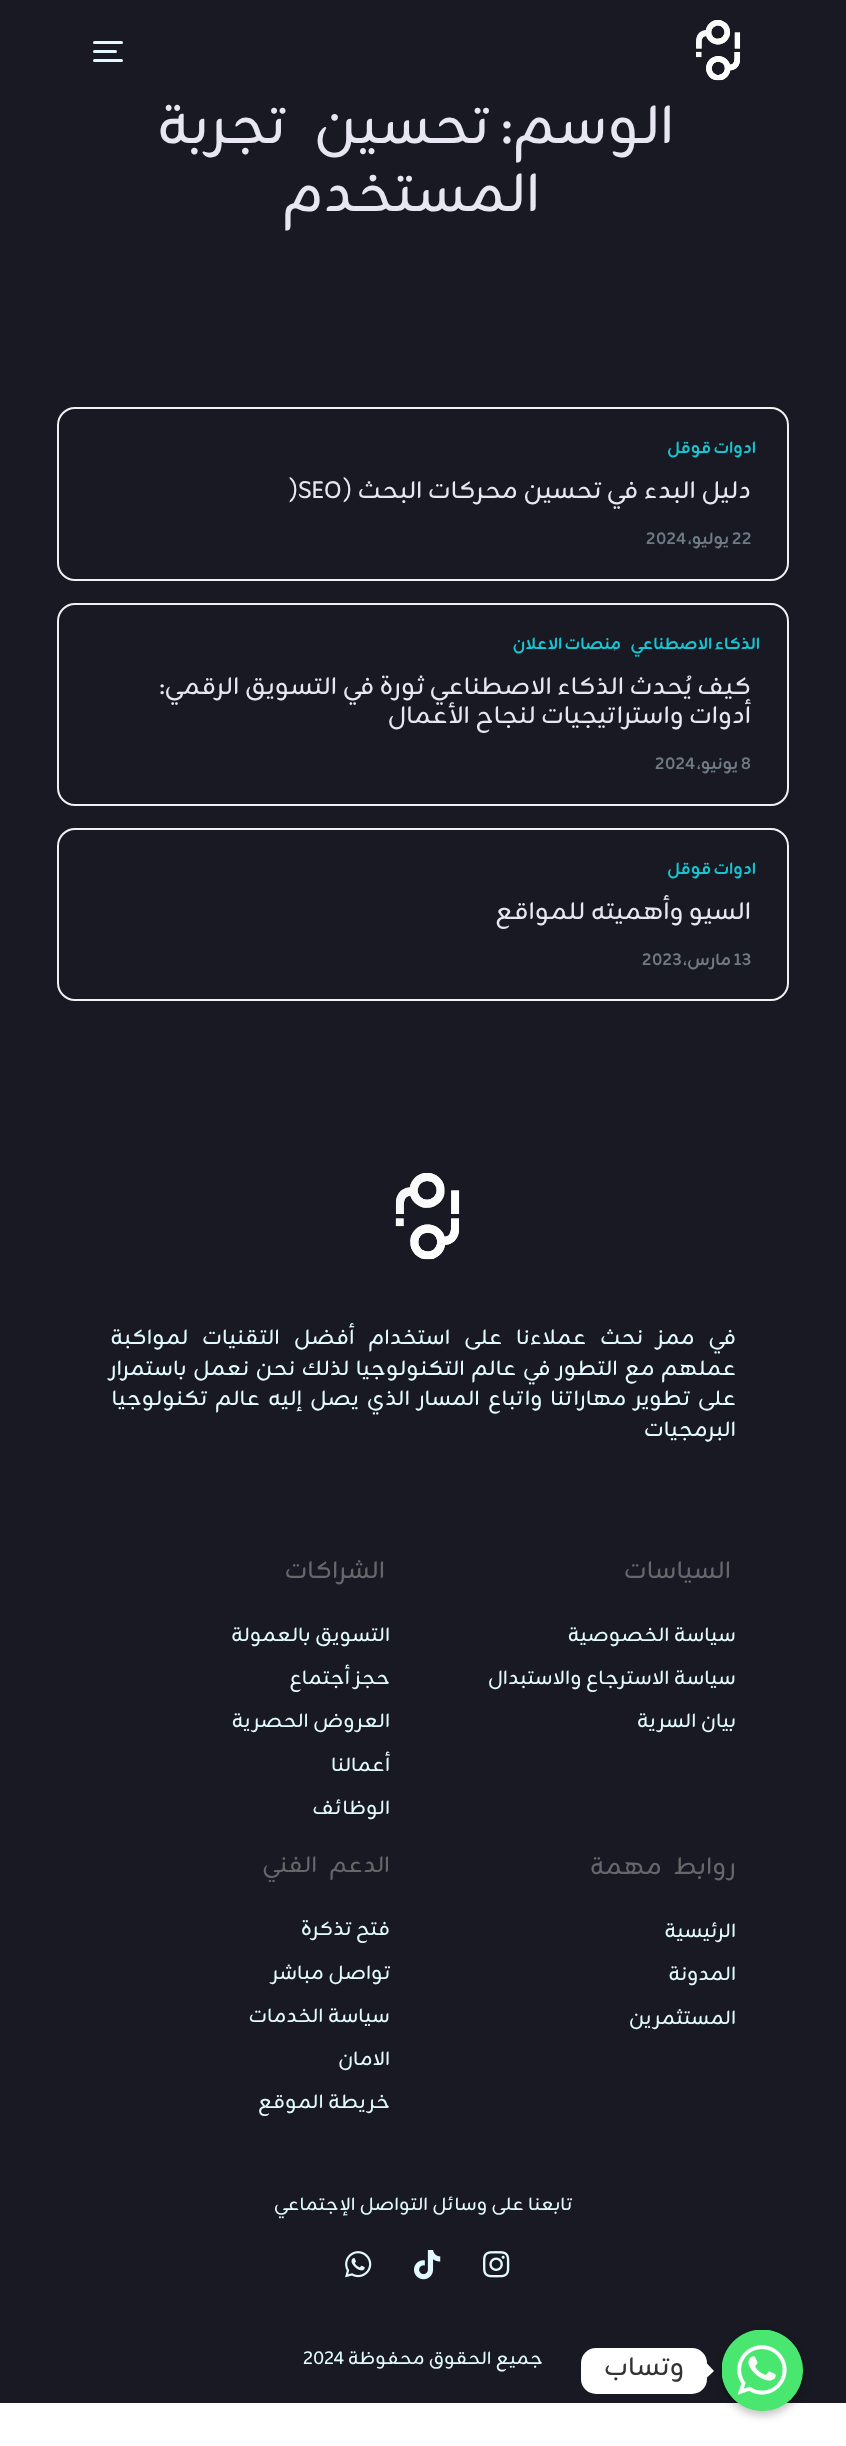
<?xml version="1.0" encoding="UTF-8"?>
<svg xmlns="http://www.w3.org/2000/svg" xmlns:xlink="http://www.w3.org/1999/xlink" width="846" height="2446">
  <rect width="100%" height="100%" fill="#ffffff" />
  <rect width="846" height="2403" fill="#181922" />
  <image x="696" y="20" width="45" height="61" xlink:href="image1.png" />
  <rect x="93" y="41" width="30" height="3" rx="1.5" fill="#e2faff" />
  <rect x="93" y="50" width="24" height="3" rx="1.5" fill="#e2faff" />
  <rect x="93" y="59" width="30" height="3" rx="1.5" fill="#e2faff" />
  <rect x="58" y="408" width="730" height="172" rx="17" fill="none" stroke="#f1f1f1" stroke-width="2" />
  <rect x="58" y="604" width="730" height="201" rx="17" fill="none" stroke="#f1f1f1" stroke-width="2" />
  <rect x="58" y="829" width="730" height="171" rx="17" fill="none" stroke="#f1f1f1" stroke-width="2" />
  <image x="395" y="1173" width="65" height="87" xlink:href="image2.png" />
  <image x="483" y="2251" width="27" height="27" xlink:href="image3.png" />
  <image x="414" y="2250" width="27" height="30" xlink:href="image4.png" />
  <image x="345" y="2251" width="27" height="27" xlink:href="image5.png" />
  <rect x="722" y="2334" width="81" height="81" rx="40.5" fill="#000000" fill-opacity="0.25" filter="blur(4.5px)" />
  <circle cx="762.5" cy="2370.5" r="40.5" fill="#49e670" />
  <image x="722" y="2330" width="81" height="81" xlink:href="image6.png" />
  <rect x="581" y="2348" width="126" height="46" rx="15" fill="#ffffff" />
  <path d="M 706.5 2378 v -15 l 7.5 8 z" fill="#ffffff" />
  <text x="674" y="143" style="font-family: Zain; font-size: 54px; letter-spacing: -1.5px; direction: rtl; fill: #e8e6f2">الوسم:</text>
  <text x="489" y="143" word-spacing="16" style="font-family: Zain; font-size: 54px; letter-spacing: -1.5px; direction: rtl; fill: #e8e6f2">تحسين تجربة</text>
  <text x="540" y="211" style="font-family: Zain; font-size: 54px; letter-spacing: -1.5px; direction: rtl; fill: #e8e6f2">المستخدم</text>
  <text x="756" y="453" word-spacing="-1" style="font-family: Zain; font-size: 16.5px; font-weight: bold; letter-spacing: 0.7px; direction: rtl; fill: #15c5d1">ادوات قوقل</text>
  <text x="751" y="498" style="font-family: Zain; font-size: 24px; direction: rtl; fill: #e8e6f2">دليل البدء في تحسين محركات البحث (</text>
  <text x="288" y="498" style="font-family: Zain; font-size: 24px; fill: #e8e6f2">)SEO</text>
  <text x="732" y="544" style="font-family: Zain; font-size: 16.5px; font-weight: bold; letter-spacing: 0.7px; fill: #6e7a84">22</text>
  <text x="646" y="544" style="font-family: Zain; font-size: 16.5px; font-weight: bold; letter-spacing: 0.7px; fill: #6e7a84">2024</text>
  <text x="729" y="544" style="font-family: Zain; font-size: 16.5px; font-weight: bold; letter-spacing: 0.7px; direction: rtl; fill: #6e7a84">يوليو،</text>
  <text x="760" y="649" word-spacing="-1" style="font-family: Zain; font-size: 16.5px; font-weight: bold; letter-spacing: 0.7px; direction: rtl; fill: #15c5d1">الذكاء الاصطناعي</text>
  <text x="613" y="649" style="font-family: Zain; font-size: 16.5px; fill: #6e7a84">,</text>
  <text x="621" y="649" word-spacing="-1" style="font-family: Zain; font-size: 16.5px; font-weight: bold; letter-spacing: 0.7px; direction: rtl; fill: #15c5d1">منصات الاعلان</text>
  <text x="751" y="694" style="font-family: Zain; font-size: 24px; direction: rtl; fill: #e8e6f2">كيف يُحدث الذكاء الاصطناعي ثورة في التسويق الرقمي:</text>
  <text x="751" y="723" style="font-family: Zain; font-size: 24px; direction: rtl; fill: #e8e6f2">أدوات واستراتيجيات لنجاح الأعمال</text>
  <text x="741" y="769" style="font-family: Zain; font-size: 16.5px; font-weight: bold; letter-spacing: 0.7px; fill: #6e7a84">8</text>
  <text x="655" y="769" style="font-family: Zain; font-size: 16.5px; font-weight: bold; letter-spacing: 0.7px; fill: #6e7a84">2024</text>
  <text x="738" y="769" style="font-family: Zain; font-size: 16.5px; font-weight: bold; letter-spacing: 0.7px; direction: rtl; fill: #6e7a84">يونيو،</text>
  <text x="756" y="874" word-spacing="-1" style="font-family: Zain; font-size: 16.5px; font-weight: bold; letter-spacing: 0.7px; direction: rtl; fill: #15c5d1">ادوات قوقل</text>
  <text x="751" y="919" style="font-family: Zain; font-size: 24px; direction: rtl; fill: #e8e6f2">السيو وأهميته للمواقع</text>
  <text x="734" y="965" style="font-family: Zain; font-size: 16.5px; font-weight: bold; letter-spacing: 0.7px; fill: #6e7a84">13</text>
  <text x="642" y="965" style="font-family: Zain; font-size: 16.5px; font-weight: bold; letter-spacing: 0.7px; fill: #6e7a84">2023</text>
  <text x="731" y="965" style="font-family: Zain; font-size: 16.5px; font-weight: bold; letter-spacing: 0.7px; direction: rtl; fill: #6e7a84">مارس،</text>
  <text x="736" y="1344" word-spacing="9" style="font-family: Zain; font-size: 21px; direction: rtl; fill: #e2faff">في ممز نحث عملاءنا على استخدام أفضل التقنيات لمواكبة</text>
  <text x="736" y="1375" word-spacing="1.75" style="font-family: Zain; font-size: 21px; direction: rtl; fill: #e2faff">عملهم مع التطور في عالم التكنولوجيا لذلك نحن نعمل باستمرار</text>
  <text x="736" y="1405" word-spacing="3.25" style="font-family: Zain; font-size: 21px; direction: rtl; fill: #e2faff">على تطوير مهاراتنا واتباع المسار الذي يصل إليه عالم تكنولوجيا</text>
  <text x="736" y="1436" style="font-family: Zain; font-size: 21px; direction: rtl; fill: #e2faff">البرمجيات</text>
  <text x="731" y="1578" style="font-family: Zain; font-size: 24px; letter-spacing: -0.6px; direction: rtl; fill: #64686a">السياسات</text>
  <text x="736" y="1641" style="font-family: Zain; font-size: 19.5px; direction: rtl; fill: #e2faff">سياسة الخصوصية</text>
  <text x="736" y="1684" style="font-family: Zain; font-size: 19.5px; direction: rtl; fill: #e2faff">سياسة الاسترجاع والاستبدال</text>
  <text x="736" y="1727" style="font-family: Zain; font-size: 19.5px; direction: rtl; fill: #e2faff">بيان السرية</text>
  <text x="385" y="1578" style="font-family: Zain; font-size: 24px; letter-spacing: -0.6px; direction: rtl; fill: #64686a">الشراكات</text>
  <text x="390" y="1641" style="font-family: Zain; font-size: 19.5px; direction: rtl; fill: #e2faff">التسويق بالعمولة</text>
  <text x="390" y="1684" style="font-family: Zain; font-size: 19.5px; direction: rtl; fill: #e2faff">حجز أجتماع</text>
  <text x="390" y="1727" style="font-family: Zain; font-size: 19.5px; direction: rtl; fill: #e2faff">العروض الحصرية</text>
  <text x="390" y="1771" style="font-family: Zain; font-size: 19.5px; direction: rtl; fill: #e2faff">أعمالنا</text>
  <text x="390" y="1814" style="font-family: Zain; font-size: 19.5px; direction: rtl; fill: #e2faff">الوظائف</text>
  <text x="736" y="1874" word-spacing="6" style="font-family: Zain; font-size: 24px; letter-spacing: -0.6px; direction: rtl; fill: #64686a">روابط مهمة</text>
  <text x="736" y="1937" style="font-family: Zain; font-size: 19.5px; direction: rtl; fill: #e2faff">الرئيسية</text>
  <text x="736" y="1980" style="font-family: Zain; font-size: 19.5px; direction: rtl; fill: #e2faff">المدونة</text>
  <text x="736" y="2024" style="font-family: Zain; font-size: 19.5px; direction: rtl; fill: #e2faff">المستثمرين</text>
  <text x="390" y="1872" word-spacing="7" style="font-family: Zain; font-size: 22.5px; letter-spacing: -0.6px; direction: rtl; fill: #64686a">الدعم الفني</text>
  <text x="390" y="1935" style="font-family: Zain; font-size: 19.5px; direction: rtl; fill: #e2faff">فتح تذكرة</text>
  <text x="390" y="1979" style="font-family: Zain; font-size: 19.5px; direction: rtl; fill: #e2faff">تواصل مباشر</text>
  <text x="390" y="2022" style="font-family: Zain; font-size: 19.5px; direction: rtl; fill: #e2faff">سياسة الخدمات</text>
  <text x="390" y="2065" style="font-family: Zain; font-size: 19.5px; direction: rtl; fill: #e2faff">الامان</text>
  <text x="390" y="2108" style="font-family: Zain; font-size: 19.5px; direction: rtl; fill: #e2faff">خريطة الموقع</text>
  <text x="572" y="2210" style="font-family: Zain; font-size: 18px; direction: rtl; fill: #e2faff">تابعنا على وسائل التواصل الإجتماعي</text>
  <text x="543" y="2364" style="font-family: Zain; font-size: 18px; direction: rtl; fill: #e2faff">جميع الحقوق محفوظة</text>
  <text x="303" y="2364" style="font-family: Zain; font-size: 18px; fill: #e2faff">٢٠٢٤</text>
  <text x="684" y="2375" style="font-family: Zain; font-size: 25.5px; direction: rtl; fill: #333333">وتساب</text>
</svg>
